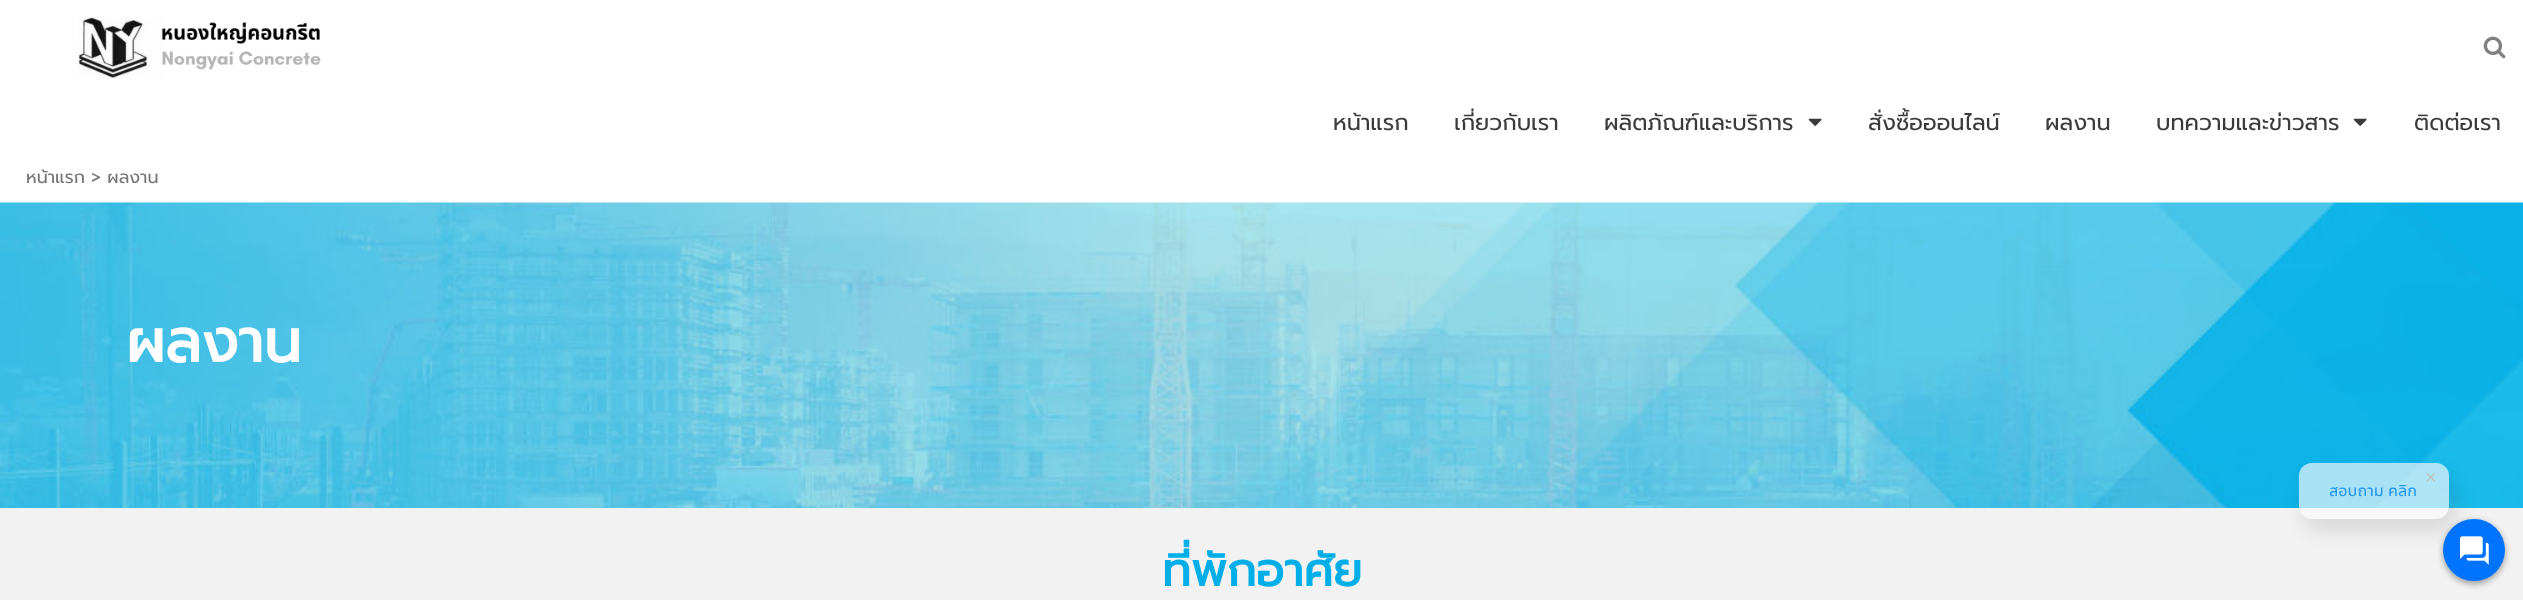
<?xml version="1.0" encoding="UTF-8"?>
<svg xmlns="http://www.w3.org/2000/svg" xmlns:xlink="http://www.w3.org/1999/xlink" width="2523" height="600">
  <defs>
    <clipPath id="clip1"><path d="M 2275 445 h 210 v 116 h -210 z m 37 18 h 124 c 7 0 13 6 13 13 v 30 c 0 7 -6 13 -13 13 h -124 c -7 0 -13 -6 -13 -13 v -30 c 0 -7 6 -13 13 -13 z" clip-rule="evenodd" /></clipPath>
  </defs>
  <rect width="100%" height="100%" fill="#ffffff" />
  <image x="78" y="17" width="243" height="62" xlink:href="image1.png" />
  <image x="2483" y="36" width="23" height="23" xlink:href="image2.png" />
  <image x="1808" y="118" width="14" height="8" xlink:href="image3.png" />
  <image x="2353" y="118" width="14" height="8" xlink:href="image3.png" />
  <image x="0" y="202" width="2523" height="306" xlink:href="image4.png" />
  <rect y="508" width="2523" height="92" fill="#f2f2f2" />
  <rect x="2299" y="463" width="150" height="56" rx="13" fill="#ffffff" fill-opacity="0.3" />
  <rect x="2443" y="521" width="62" height="63" rx="31" fill="#000000" fill-opacity="0.35" filter="blur(3px)" />
  <circle cx="2474" cy="550" r="31" fill="#0074ff" />
  <image x="2460" y="536" width="29" height="29" xlink:href="image5.png" />
  <g clip-path="url(#clip1)">
    <rect x="2305" y="475" width="150" height="56" rx="13" fill="#000000" fill-opacity="0.1" filter="blur(9.5px)" />
  </g>
  <rect x="2299" y="463" width="150" height="56" rx="13" fill="#fafafa" fill-opacity="0.5" />
  <text x="1333" y="130" style="font-family: Prompt; font-size: 22.5px; fill: #3b3b3b">หน้าแรก</text>
  <text x="1454" y="130" style="font-family: Prompt; font-size: 22.5px; fill: #3b3b3b">เกี่ยวกับเรา</text>
  <text x="1604" y="130" style="font-family: Prompt; font-size: 22.5px; fill: #3b3b3b">ผลิตภัณฑ์และบริการ</text>
  <text x="1868" y="130" style="font-family: Prompt; font-size: 22.5px; fill: #3b3b3b">สั่งซื้อออนไลน์</text>
  <text x="2045" y="130" style="font-family: Prompt; font-size: 22.5px; fill: #3b3b3b">ผลงาน</text>
  <text x="2156" y="130" style="font-family: Prompt; font-size: 22.5px; fill: #3b3b3b">บทความและข่าวสาร</text>
  <text x="2414" y="130" style="font-family: Prompt; font-size: 22.5px; fill: #3b3b3b">ติดต่อเรา</text>
  <text x="26" y="183" style="font-family: Prompt; font-size: 17.5px; fill: #747474">หน้าแรก &gt; ผลงาน</text>
  <text x="126" y="362" style="font-family: Prompt; font-size: 60px; font-weight: bold; fill: #ffffff">ผลงาน</text>
  <text x="1162" y="586" style="font-family: Prompt; font-size: 46px; font-weight: bold; fill: #01aee8">ที่พักอาศัย</text>
  <text x="2425" y="484" style="font-family: Liberation Sans; font-size: 20px; fill: #c0c0c0">×</text>
  <text x="2329" y="496" style="font-family: Noto Sans Thai UI; font-size: 16.25px; fill: #2196f3">สอบถาม คลิก</text>
</svg>
